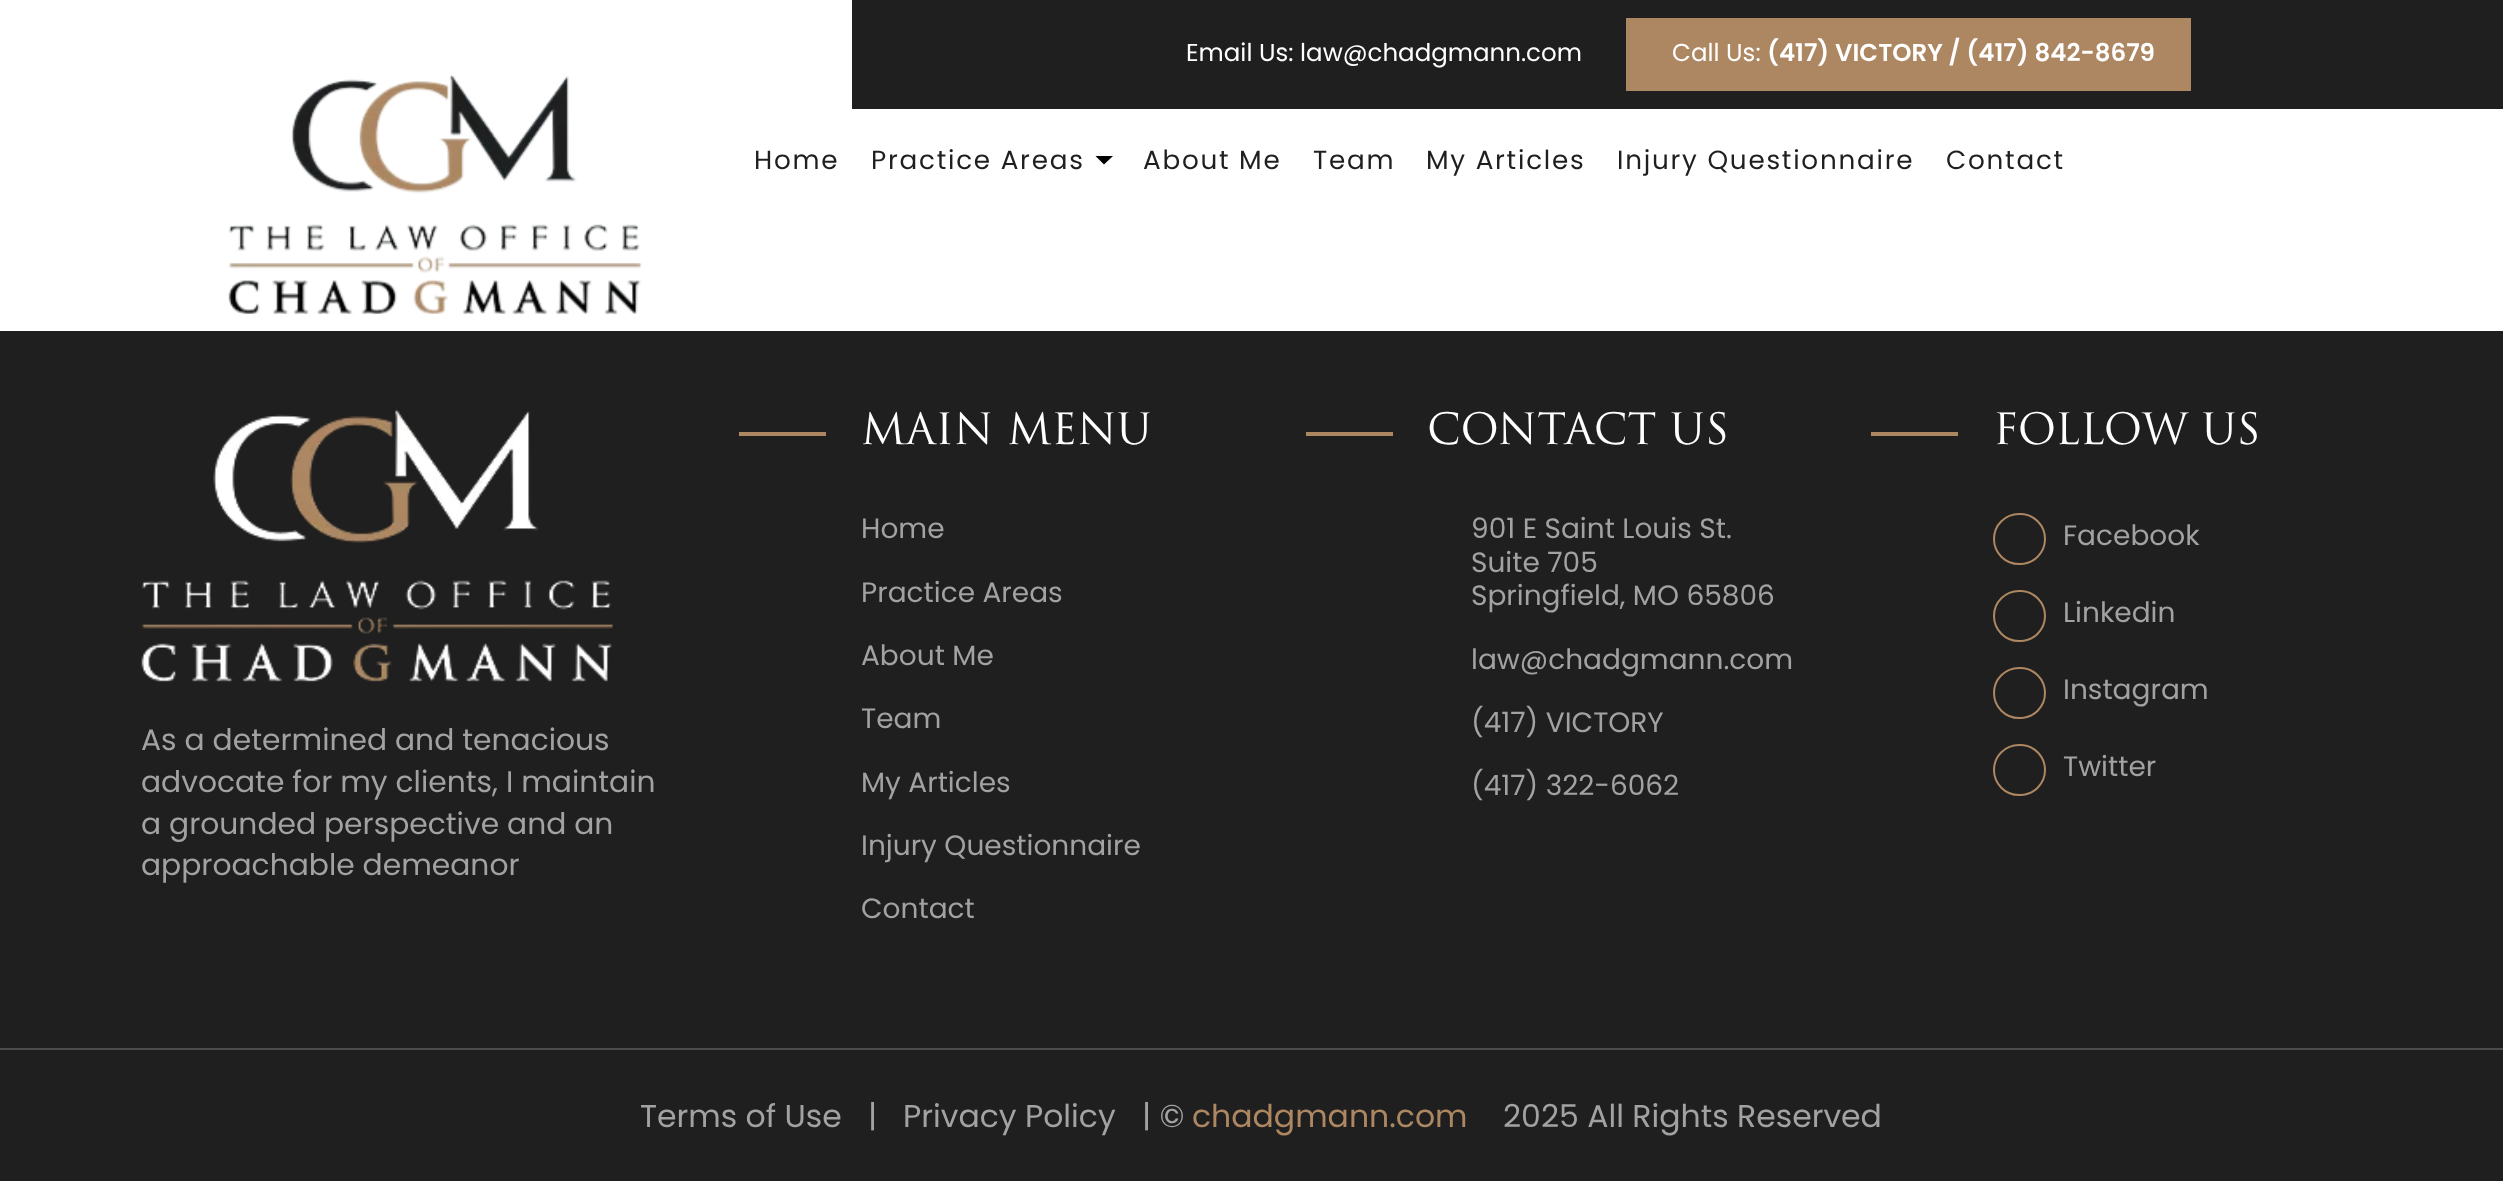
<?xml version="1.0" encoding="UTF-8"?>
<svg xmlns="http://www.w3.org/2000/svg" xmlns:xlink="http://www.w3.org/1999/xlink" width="2503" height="1181">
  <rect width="100%" height="100%" fill="#1f1f1f" />
  <rect width="2503" height="331" fill="#ffffff" />
  <rect x="852" width="1651" height="109" fill="#1f1f1f" />
  <rect x="1626" y="18" width="565" height="73" fill="#ad8762" />
  <image x="228" y="74" width="414" height="240" xlink:href="image1.png" />
  <path d="M 1095.5 156 h 17.5 l -9 8.5 z" fill="#000000" />
  <rect x="739" y="432" width="87" height="4" fill="#ad8762" />
  <rect x="1306" y="432" width="87" height="4" fill="#ad8762" />
  <rect x="1871" y="432" width="87" height="4" fill="#ad8762" />
  <rect x="1994" y="514" width="51" height="50" rx="25" fill="none" stroke="#ad8762" stroke-width="2" />
  <rect x="1994" y="591" width="51" height="50" rx="25" fill="none" stroke="#ad8762" stroke-width="2" />
  <rect x="1994" y="668" width="51" height="50" rx="25" fill="none" stroke="#ad8762" stroke-width="2" />
  <rect x="1994" y="745" width="51" height="50" rx="25" fill="none" stroke="#ad8762" stroke-width="2" />
  <image x="141" y="409" width="472" height="273" xlink:href="image2.png" />
  <rect y="1048" width="2503" height="2" fill="#4c4c4c" />
  <text x="1186" y="61" style="font-family: Poppins; font-size: 24.5px; fill: #ffffff">Email Us: law@chadgmann.com</text>
  <text x="1672" y="61" style="font-family: Poppins; font-size: 24.5px; fill: #ffffff">Call Us:</text>
  <text x="1767" y="61" style="font-family: Poppins; font-size: 24.5px; font-weight: 600; fill: #ffffff">(417) VICTORY / (417) 842-8679</text>
  <text x="754" y="169" style="font-family: Poppins; font-size: 26.25px; letter-spacing: 1.75px; fill: #1f1f1f">Home</text>
  <text x="871" y="169" style="font-family: Poppins; font-size: 26.25px; letter-spacing: 1.75px; fill: #1f1f1f">Practice Areas</text>
  <text x="1143" y="169" style="font-family: Poppins; font-size: 26.25px; letter-spacing: 1.75px; fill: #1f1f1f">About Me</text>
  <text x="1313" y="169" style="font-family: Poppins; font-size: 26.25px; letter-spacing: 1.75px; fill: #1f1f1f">Team</text>
  <text x="1426" y="169" style="font-family: Poppins; font-size: 26.25px; letter-spacing: 1.75px; fill: #1f1f1f">My Articles</text>
  <text x="1617" y="169" style="font-family: Poppins; font-size: 26.25px; letter-spacing: 1.75px; fill: #1f1f1f">Injury Questionnaire</text>
  <text x="1946" y="169" style="font-family: Poppins; font-size: 26.25px; letter-spacing: 1.75px; fill: #1f1f1f">Contact</text>
  <text x="861" y="444" style="font-family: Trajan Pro; font-size: 42px; fill: #ffffff">MAIN MENU</text>
  <text x="861" y="538" style="font-family: Poppins; font-size: 28px; fill: #a2a2a2">Home</text>
  <text x="861" y="602" style="font-family: Poppins; font-size: 28px; fill: #a2a2a2">Practice Areas</text>
  <text x="861" y="665" style="font-family: Poppins; font-size: 28px; fill: #a2a2a2">About Me</text>
  <text x="861" y="728" style="font-family: Poppins; font-size: 28px; fill: #a2a2a2">Team</text>
  <text x="861" y="792" style="font-family: Poppins; font-size: 28px; fill: #a2a2a2">My Articles</text>
  <text x="861" y="855" style="font-family: Poppins; font-size: 28px; fill: #a2a2a2">Injury Questionnaire</text>
  <text x="861" y="918" style="font-family: Poppins; font-size: 28px; fill: #a2a2a2">Contact</text>
  <text x="1427" y="444" style="font-family: Trajan Pro; font-size: 42px; fill: #ffffff">CONTACT US</text>
  <text x="1471" y="538" style="font-family: Poppins; font-size: 28px; fill: #a2a2a2">901 E Saint Louis St.</text>
  <text x="1471" y="572" style="font-family: Poppins; font-size: 28px; fill: #a2a2a2">Suite 705</text>
  <text x="1471" y="605" style="font-family: Poppins; font-size: 28px; fill: #a2a2a2">Springfield, MO 65806</text>
  <text x="1471" y="669" style="font-family: Poppins; font-size: 28px; fill: #a2a2a2">law@chadgmann.com</text>
  <text x="1471" y="732" style="font-family: Poppins; font-size: 28px; fill: #a2a2a2">(417) VICTORY</text>
  <text x="1471" y="795" style="font-family: Poppins; font-size: 28px; fill: #a2a2a2">(417) 322-6062</text>
  <text x="1993" y="444" style="font-family: Trajan Pro; font-size: 42px; fill: #ffffff">FOLLOW US</text>
  <text x="2063" y="545" style="font-family: Poppins; font-size: 28px; fill: #a2a2a2">Facebook</text>
  <text x="2063" y="622" style="font-family: Poppins; font-size: 28px; fill: #a2a2a2">Linkedin</text>
  <text x="2063" y="699" style="font-family: Poppins; font-size: 28px; fill: #a2a2a2">Instagram</text>
  <text x="2063" y="776" style="font-family: Poppins; font-size: 28px; fill: #a2a2a2">Twitter</text>
  <text x="141" y="750" style="font-family: Poppins; font-size: 29.75px; fill: #a2a2a2">As a determined and tenacious</text>
  <text x="141" y="792" style="font-family: Poppins; font-size: 29.75px; fill: #a2a2a2">advocate for my clients, I maintain</text>
  <text x="141" y="834" style="font-family: Poppins; font-size: 29.75px; fill: #a2a2a2">a grounded perspective and an</text>
  <text x="141" y="875" style="font-family: Poppins; font-size: 29.75px; fill: #a2a2a2">approachable demeanor</text>
  <text x="640" y="1127" style="font-family: Poppins; font-size: 31.5px; fill: #a2a2a2">Terms of Use</text>
  <text x="868" y="1127" style="font-family: Poppins; font-size: 31.5px; fill: #a2a2a2">|</text>
  <text x="903" y="1127" style="font-family: Poppins; font-size: 31.5px; fill: #a2a2a2">Privacy Policy</text>
  <text x="1142" y="1127" style="font-family: Poppins; font-size: 31.5px; fill: #a2a2a2">| ©</text>
  <text x="1192" y="1127" style="font-family: Poppins; font-size: 31.5px; fill: #ad8762">chadgmann.com</text>
  <text x="1503" y="1127" style="font-family: Poppins; font-size: 31.5px; fill: #a2a2a2">2025 All Rights Reserved</text>
</svg>
